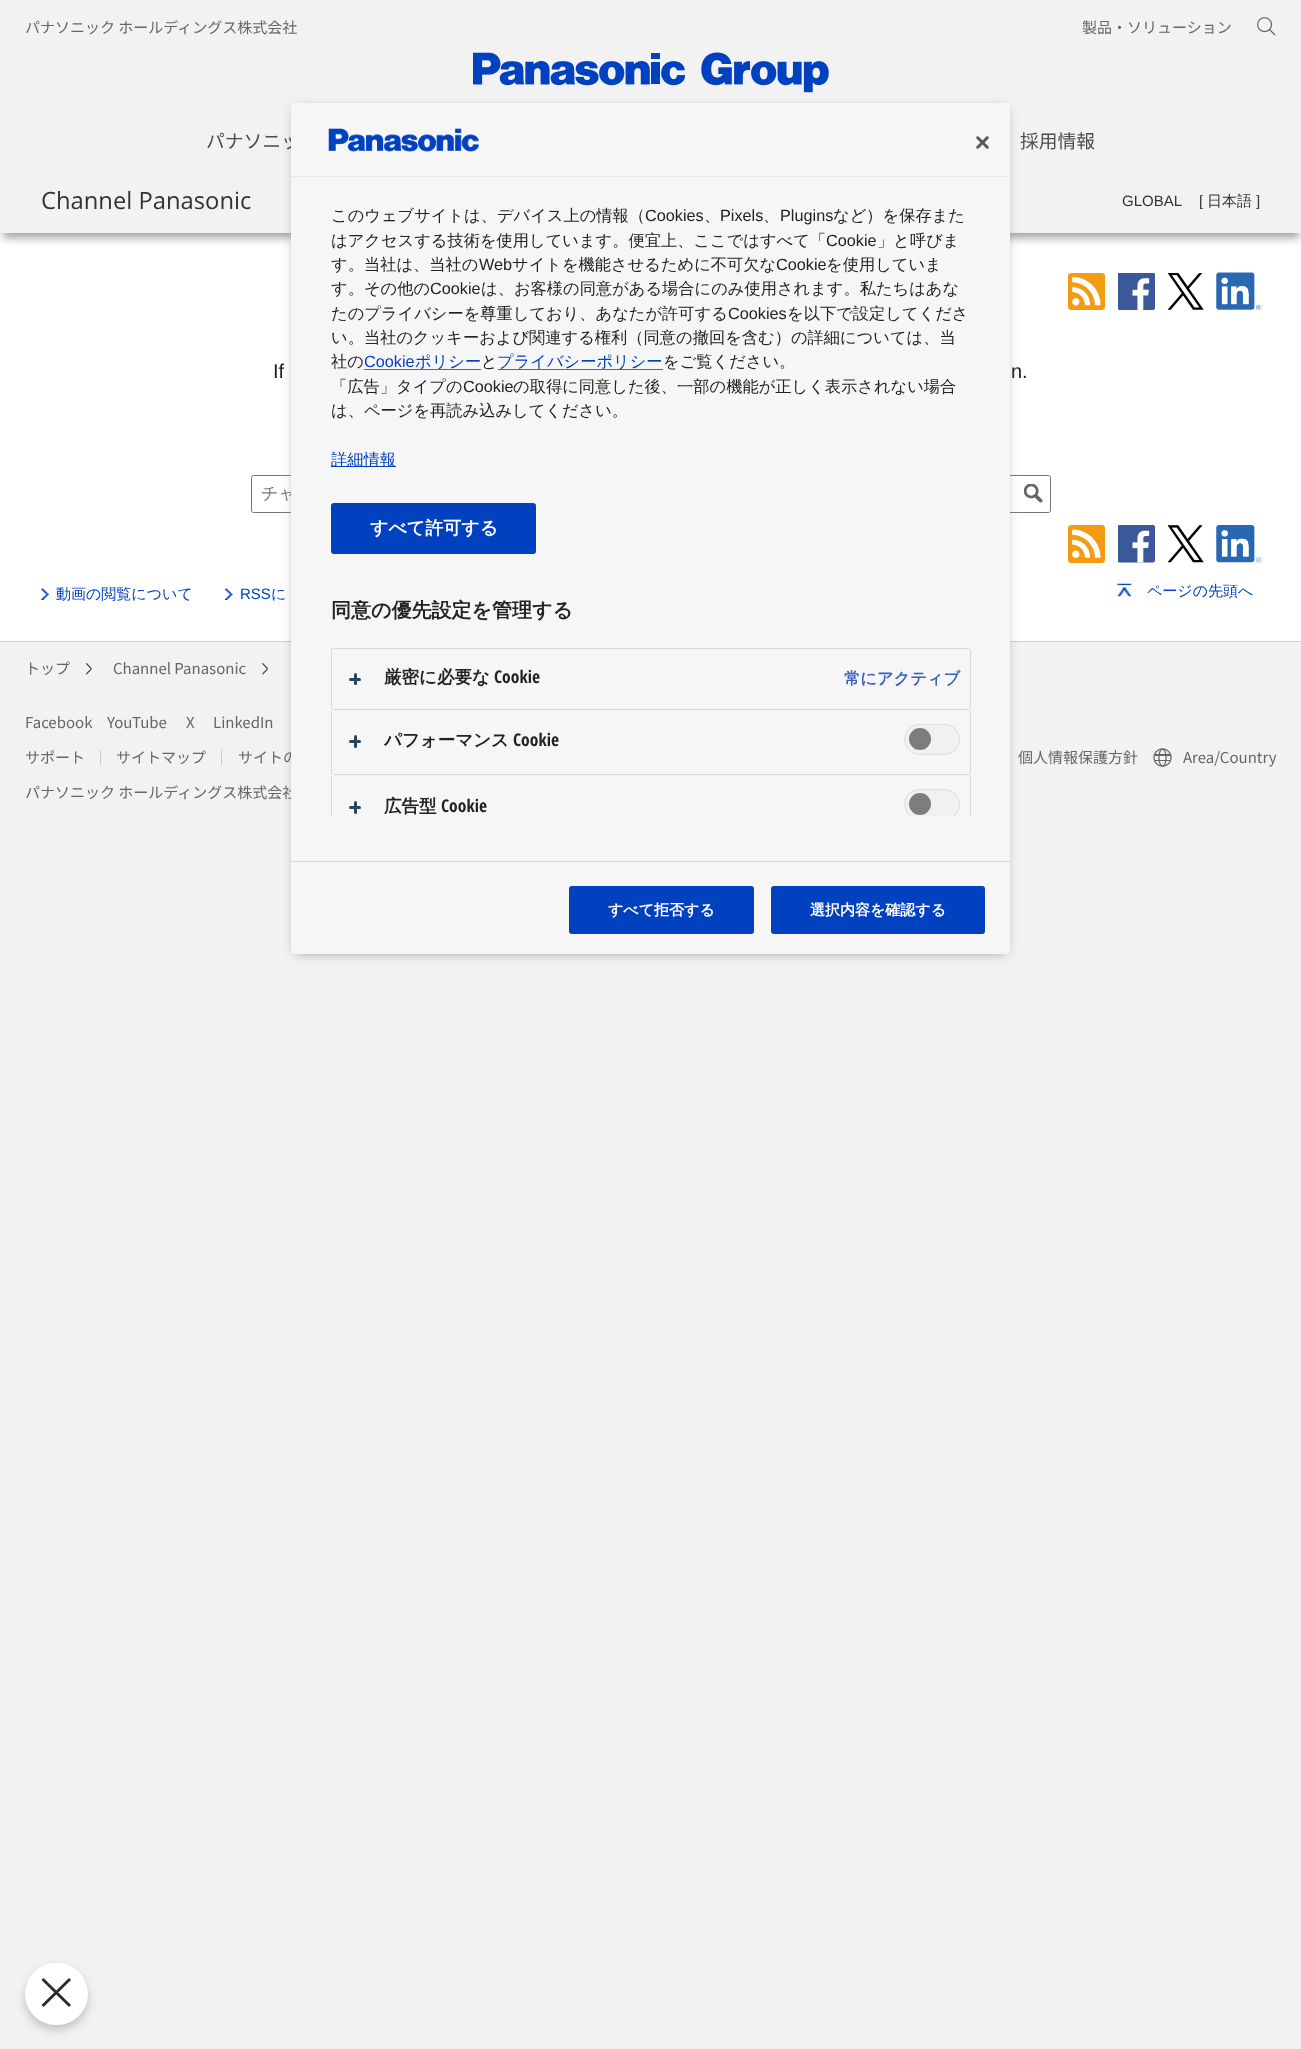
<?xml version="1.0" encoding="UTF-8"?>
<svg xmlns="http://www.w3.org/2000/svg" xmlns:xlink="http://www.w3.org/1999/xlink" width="1301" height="2049">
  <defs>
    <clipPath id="clip1"><rect x="329" y="179" width="680" height="637" /></clipPath>
  </defs>
  <rect width="100%" height="100%" fill="#f2f2f2" />
  <rect y="233" width="1301" height="408" fill="#ffffff" />
  <image x="1257" y="17" width="19" height="19" xlink:href="image1.png" />
  <image x="473" y="52" width="356" height="41" xlink:href="image2.png" />
  <rect x="3" y="180" width="1296" height="58" fill="#000000" fill-opacity="0.36" filter="blur(4px)" />
  <rect y="173" width="1301" height="60" fill="#f2f2f2" />
  <image x="1068" y="273" width="37" height="37" xlink:href="image3.png" />
  <image x="1118" y="273" width="37" height="37" xlink:href="image4.png" />
  <image x="1168" y="273" width="36" height="37" xlink:href="image5.png" />
  <image x="1216" y="272" width="46" height="38" xlink:href="image6.png" />
  <rect x="251.5" y="475.5" width="799" height="37" rx="2" fill="none" stroke="#767676" />
  <image x="1024" y="484" width="19" height="19" xlink:href="image7.png" />
  <image x="1068" y="525" width="37" height="38" xlink:href="image8.png" />
  <image x="1118" y="525" width="37" height="38" xlink:href="image9.png" />
  <image x="1168" y="525" width="36" height="38" xlink:href="image10.png" />
  <image x="1216" y="525" width="46" height="38" xlink:href="image11.png" />
  <image x="41" y="588" width="8" height="12" xlink:href="image12.png" />
  <image x="225" y="588" width="8" height="12" xlink:href="image13.png" />
  <image x="1117" y="583" width="15" height="14" xlink:href="image14.png" />
  <rect y="641" width="1301" height="1" fill="#cccccc" />
  <image x="86" y="663" width="6" height="12" xlink:href="image15.png" />
  <image x="262" y="663" width="6" height="12" xlink:href="image16.png" />
  <rect x="100" y="750" width="1" height="15" fill="#cccccc" />
  <rect x="221" y="750" width="1" height="15" fill="#cccccc" />
  <image x="1153" y="748" width="19" height="19" xlink:href="image17.png" />
  <rect x="295" y="109" width="711" height="844" fill="#999999" filter="blur(6px)" />
  <rect x="25" y="1968" width="63" height="62" rx="31" fill="#000000" fill-opacity="0.2" filter="blur(5px)" />
  <rect x="25" y="1963" width="63" height="62" rx="31" fill="#ffffff" />
  <path d="M 41.5 1980 l 27.5 27 l 2 -2 l -27.5 -27 z" fill="#292b2e" />
  <path d="M 71 1980 l -27.5 27 l -2 -2 l 27.5 -27 z" fill="#292b2e" />
  <text x="25" y="33" style="font-family: Noto Sans JP; font-size: 15px; fill: #666666">パナソニック ホールディングス株式会社</text>
  <text x="1082" y="33" style="font-family: Noto Sans JP; font-size: 15px; fill: #666666">製品・ソリューション</text>
  <text x="206" y="148" style="font-family: Noto Sans JP; font-size: 18.75px; fill: #4d4d4d">パナソニッ</text>
  <text x="1020" y="148" style="font-family: Noto Sans JP; font-size: 18.75px; fill: #4d4d4d">採用情報</text>
  <text x="41" y="209" style="font-family: Open Sans; font-size: 23.75px; fill: #333333">Channel Panasonic</text>
  <text x="1122" y="206" style="font-family: Liberation Sans; font-size: 15px; fill: #333333">GLOBAL</text>
  <text x="1199" y="206" style="font-family: Liberation Sans; font-size: 15px; fill: #333333">[</text>
  <text x="1207" y="206" style="font-family: WenQuanYi Zen Hei; font-size: 15px; font-weight: 500; fill: #333333">日本語</text>
  <text x="1256" y="206" style="font-family: Liberation Sans; font-size: 15px; fill: #333333">]</text>
  <text x="273" y="378" style="font-family: Liberation Sans; font-size: 20px; fill: #222222">If</text>
  <text x="1011" y="378" style="font-family: Liberation Sans; font-size: 20px; fill: #222222">n.</text>
  <text x="261" y="499" style="font-family: WenQuanYi Zen Hei; font-size: 17px; font-weight: 500; fill: #757575">チャ</text>
  <text x="56" y="599" style="font-family: WenQuanYi Zen Hei; font-size: 15px; font-weight: 500; fill: #0041c0">動画の閲覧について</text>
  <text x="240" y="599" style="font-family: Liberation Sans; font-size: 15px; fill: #0041c0">RSS</text>
  <text x="271" y="599" style="font-family: WenQuanYi Zen Hei; font-size: 15px; font-weight: 500; fill: #0041c0">に</text>
  <text x="1147" y="596" style="font-family: WenQuanYi Zen Hei; font-size: 15px; font-weight: 500; fill: #0041c0">ページの先頭へ</text>
  <text x="25" y="674" style="font-family: Noto Sans JP; font-size: 15px; fill: #666666">トップ</text>
  <text x="113" y="674" style="font-family: Noto Sans JP; font-size: 15px; fill: #666666">Channel Panasonic</text>
  <text x="25" y="728" style="font-family: Noto Sans JP; font-size: 15px; fill: #666666">Facebook</text>
  <text x="107" y="728" style="font-family: Noto Sans JP; font-size: 15px; fill: #666666">YouTube</text>
  <text x="186" y="728" style="font-family: Noto Sans JP; font-size: 15px; fill: #666666">X</text>
  <text x="213" y="728" style="font-family: Noto Sans JP; font-size: 15px; fill: #666666">LinkedIn</text>
  <text x="25" y="763" style="font-family: Noto Sans JP; font-size: 15px; fill: #666666">サポート</text>
  <text x="116" y="763" style="font-family: Noto Sans JP; font-size: 15px; fill: #666666">サイトマップ</text>
  <text x="238" y="763" style="font-family: Noto Sans JP; font-size: 15px; fill: #666666">サイトの</text>
  <text x="1018" y="763" style="font-family: Noto Sans JP; font-size: 15px; fill: #666666">個人情報保護方針</text>
  <text x="1183" y="763" style="font-family: Noto Sans JP; font-size: 15px; fill: #666666">Area/Country</text>
  <text x="25" y="798" style="font-family: Noto Sans JP; font-size: 15px; fill: #666666">パナソニック ホールディングス株式会社</text>
  <rect x="291" y="103" width="719" height="851" rx="3" fill="#f6f6f6" />
  <rect x="291" y="176" width="719" height="1" fill="#e9e9e9" />
  <image x="328" y="128" width="151" height="24" xlink:href="image18.png" />
  <image x="976" y="136" width="13" height="13" xlink:href="image19.png" />
  <text x="331" y="221" style="font-family: WenQuanYi Zen Hei; font-size: 16.25px; font-weight: 500; fill: #222222">このウェブサイトは、デバイス上の情報（</text>
  <text x="645" y="221" style="font-family: Liberation Sans; font-size: 16.25px; fill: #222222">Cookies</text>
  <text x="704" y="221" style="font-family: WenQuanYi Zen Hei; font-size: 16.25px; font-weight: 500; fill: #222222">、</text>
  <text x="720" y="221" style="font-family: Liberation Sans; font-size: 16.25px; fill: #222222">Pixels</text>
  <text x="763" y="221" style="font-family: WenQuanYi Zen Hei; font-size: 16.25px; font-weight: 500; fill: #222222">、</text>
  <text x="780" y="221" style="font-family: Liberation Sans; font-size: 16.25px; fill: #222222">Plugins</text>
  <text x="833" y="221" style="font-family: WenQuanYi Zen Hei; font-size: 16.25px; font-weight: 500; fill: #222222">など）を保存また</text>
  <text x="331" y="246" style="font-family: WenQuanYi Zen Hei; font-size: 16.25px; font-weight: 500; fill: #222222">はアクセスする技術を使用しています。便宜上、ここではすべて「</text>
  <text x="826" y="246" style="font-family: Liberation Sans; font-size: 16.25px; fill: #222222">Cookie</text>
  <text x="877" y="246" style="font-family: WenQuanYi Zen Hei; font-size: 16.25px; font-weight: 500; fill: #222222">」と呼びま</text>
  <text x="331" y="270" style="font-family: WenQuanYi Zen Hei; font-size: 16.25px; font-weight: 500; fill: #222222">す。当社は、当社の</text>
  <text x="479" y="270" style="font-family: Liberation Sans; font-size: 16.25px; fill: #222222">Web</text>
  <text x="512" y="270" style="font-family: WenQuanYi Zen Hei; font-size: 16.25px; font-weight: 500; fill: #222222">サイトを機能させるために不可欠な</text>
  <text x="776" y="270" style="font-family: Liberation Sans; font-size: 16.25px; fill: #222222">Cookie</text>
  <text x="826" y="270" style="font-family: WenQuanYi Zen Hei; font-size: 16.25px; font-weight: 500; fill: #222222">を使用していま</text>
  <text x="331" y="294" style="font-family: WenQuanYi Zen Hei; font-size: 16.25px; font-weight: 500; fill: #222222">す。その他の</text>
  <text x="430" y="294" style="font-family: Liberation Sans; font-size: 16.25px; fill: #222222">Cookie</text>
  <text x="481" y="294" style="font-family: WenQuanYi Zen Hei; font-size: 16.25px; font-weight: 500; fill: #222222">は、お客様の同意がある場合にのみ使用されます。私たちはあな</text>
  <text x="331" y="319" style="font-family: WenQuanYi Zen Hei; font-size: 16.25px; font-weight: 500; fill: #222222">たのプライバシーを尊重しており、あなたが許可する</text>
  <text x="728" y="319" style="font-family: Liberation Sans; font-size: 16.25px; fill: #222222">Cookies</text>
  <text x="787" y="319" style="font-family: WenQuanYi Zen Hei; font-size: 16.25px; font-weight: 500; fill: #222222">を以下で設定してくださ</text>
  <text x="331" y="343" style="font-family: WenQuanYi Zen Hei; font-size: 16.25px; font-weight: 500; fill: #222222">い。当社のクッキーおよび関連する権利（同意の撤回を含む）の詳細については、当</text>
  <text x="331" y="367" style="font-family: WenQuanYi Zen Hei; font-size: 16.25px; font-weight: 500; fill: #222222">社の</text>
  <text x="364" y="367" style="font-family: Liberation Sans; font-size: 16.25px; fill: #0041c0">Cookie</text>
  <rect x="364" y="369" width="117" height="1" fill="#656565" />
  <text x="415" y="367" style="font-family: WenQuanYi Zen Hei; font-size: 16.25px; font-weight: 500; fill: #0041c0">ポリシー</text>
  <text x="481" y="367" style="font-family: WenQuanYi Zen Hei; font-size: 16.25px; font-weight: 500; fill: #222222">と</text>
  <rect x="498" y="369" width="165" height="1" fill="#656565" />
  <text x="497" y="367" style="font-family: WenQuanYi Zen Hei; font-size: 16.25px; font-weight: 500; fill: #0041c0">プライバシーポリシー</text>
  <text x="663" y="367" style="font-family: WenQuanYi Zen Hei; font-size: 16.25px; font-weight: 500; fill: #222222">をご覧ください。</text>
  <text x="331" y="392" style="font-family: WenQuanYi Zen Hei; font-size: 16.25px; font-weight: 500; fill: #222222">「広告」タイプの</text>
  <text x="463" y="392" style="font-family: Liberation Sans; font-size: 16.25px; fill: #222222">Cookie</text>
  <text x="513" y="392" style="font-family: WenQuanYi Zen Hei; font-size: 16.25px; font-weight: 500; fill: #222222">の取得に同意した後、一部の機能が正しく表示されない場合</text>
  <text x="331" y="416" style="font-family: WenQuanYi Zen Hei; font-size: 16.25px; font-weight: 500; fill: #222222">は、ページを再読み込みしてください。</text>
  <rect x="331" y="466" width="65" height="1" fill="#0041c0" />
  <text x="331" y="465" style="font-family: WenQuanYi Zen Hei; font-size: 16.25px; font-weight: 500; fill: #0041c0">詳細情報</text>
  <rect x="331.5" y="503.5" width="204" height="50" rx="2" fill="#0041c0" stroke="#0041c0" />
  <text x="370" y="534" style="font-family: WenQuanYi Zen Hei; font-size: 18px; font-weight: bold; fill: #ffffff">すべて許可する</text>
  <text x="331" y="617" style="font-family: WenQuanYi Zen Hei; font-size: 20px; font-weight: bold; fill: #222222">同意の優先設定を管理する</text>
  <rect x="331.5" y="648.5" width="639" height="61" rx="2" fill="none" stroke="#d8d8d8" />
  <rect x="354" y="673" width="3" height="12" rx="1.5" fill="#27455c" />
  <rect x="349" y="678" width="12" height="3" rx="1.5" fill="#27455c" />
  <text x="384" y="683" style="font-family: WenQuanYi Zen Hei; font-size: 17.5px; font-weight: bold; fill: #222222">厳密に必要な</text>
  <text x="494" y="683" style="font-family: Open Sans Condensed; font-size: 17.5px; font-weight: bold; fill: #222222">Cookie</text>
  <text x="844" y="684" style="font-family: WenQuanYi Zen Hei; font-size: 16.25px; font-weight: bold; fill: #3860be">常にアクティブ</text>
  <rect x="970" y="711" width="1" height="63" fill="#d8d8d8" />
  <rect x="333" y="774" width="637" height="1" fill="#d8d8d8" />
  <rect x="331" y="711" width="1" height="63" fill="#d8d8d8" />
  <rect x="354" y="735" width="3" height="13" rx="1.5" fill="#27455c" />
  <rect x="349" y="740" width="12" height="3" rx="1.5" fill="#27455c" />
  <text x="384" y="746" style="font-family: WenQuanYi Zen Hei; font-size: 17.5px; font-weight: bold; fill: #222222">パフォーマンス</text>
  <text x="513" y="746" style="font-family: Open Sans Condensed; font-size: 17.5px; font-weight: bold; fill: #222222">Cookie</text>
  <rect x="904.5" y="724.5" width="55" height="30" rx="15" fill="#f2f1f1" stroke="#dddddd" />
  <circle cx="920" cy="739" r="11" fill="#7d7d7d" />
  <rect x="970" y="776" width="1" height="40" fill="#d8d8d8" />
  <rect x="331" y="776" width="1" height="40" fill="#d8d8d8" />
  <rect x="354" y="801" width="3" height="13" rx="1.5" fill="#27455c" />
  <rect x="349" y="806" width="12" height="3" rx="1.5" fill="#27455c" />
  <text x="384" y="812" style="font-family: WenQuanYi Zen Hei; font-size: 17.5px; font-weight: bold; fill: #222222">広告型</text>
  <text x="441" y="812" style="font-family: Open Sans Condensed; font-size: 17.5px; font-weight: bold; fill: #222222">Cookie</text>
  <g clip-path="url(#clip1)">
    <rect x="904.5" y="789.5" width="55" height="30" rx="15" fill="#f2f1f1" stroke="#dddddd" />
  </g>
  <circle cx="920" cy="804" r="11" fill="#7d7d7d" />
  <rect x="291" y="861" width="719" height="1" fill="#d8d8d8" />
  <rect x="569.5" y="886.5" width="184" height="47" rx="2" fill="#0041c0" stroke="#0041c0" />
  <text x="608" y="915" style="font-family: WenQuanYi Zen Hei; font-size: 15px; font-weight: bold; fill: #ffffff">すべて拒否する</text>
  <rect x="771.5" y="886.5" width="213" height="47" rx="2" fill="#0041c0" stroke="#0041c0" />
  <text x="810" y="915" style="font-family: WenQuanYi Zen Hei; font-size: 15px; font-weight: bold; fill: #ffffff">選択内容を確認する</text>
</svg>
